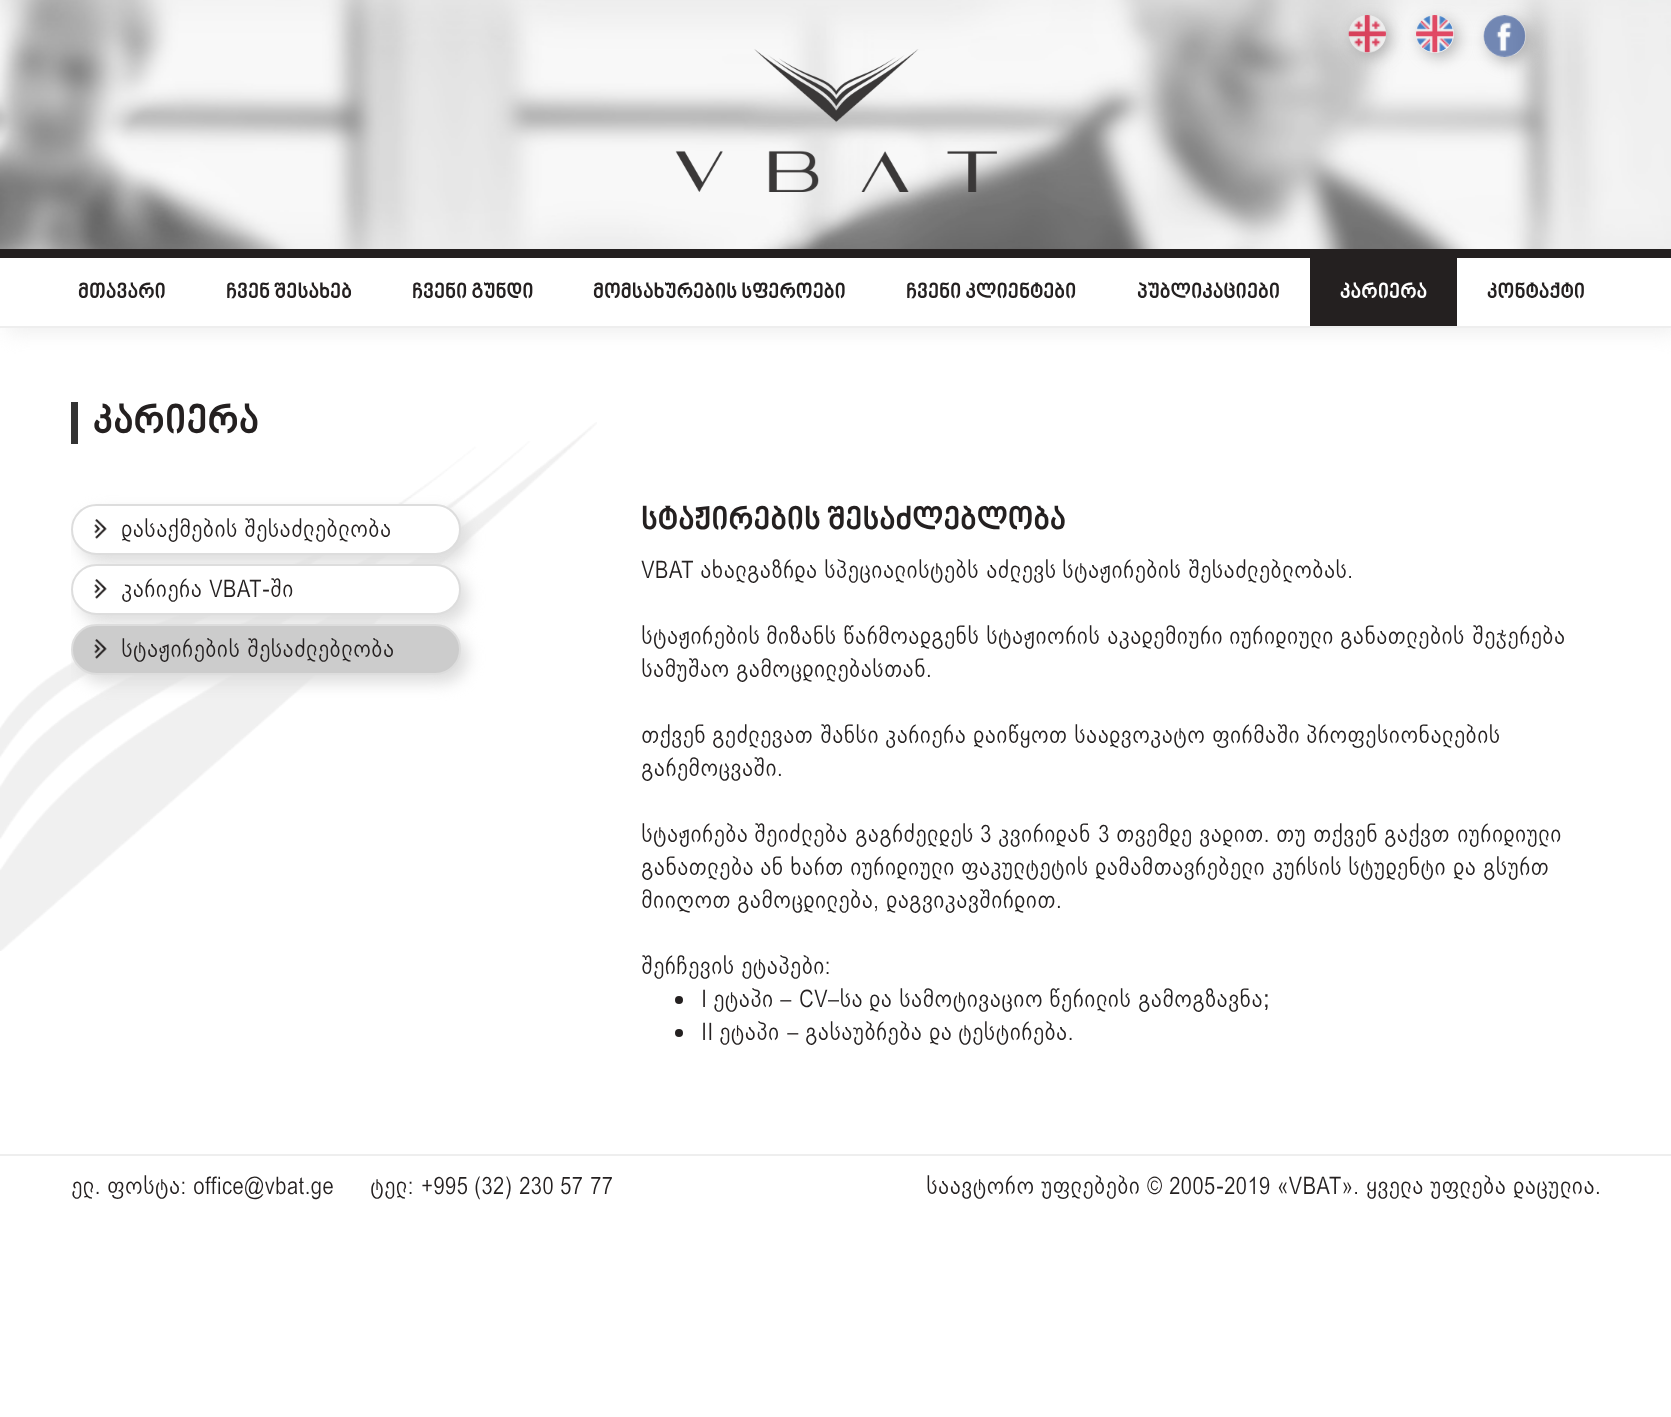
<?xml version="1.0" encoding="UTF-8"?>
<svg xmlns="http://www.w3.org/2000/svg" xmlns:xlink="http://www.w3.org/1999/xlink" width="1671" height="1417">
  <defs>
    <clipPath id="clip1"><rect x="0" y="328" width="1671" height="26" /></clipPath>
    <clipPath id="clip2"><path d="M 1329 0 h 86 v 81 h -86 z m 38.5 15 c 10 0 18.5 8.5 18.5 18.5 v 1 c 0 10 -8.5 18.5 -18.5 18.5 c -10 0 -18.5 -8.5 -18.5 -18.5 v -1 c 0 -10 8.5 -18.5 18.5 -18.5 z" clip-rule="evenodd" /></clipPath>
    <clipPath id="clip3"><path d="M 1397 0 h 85 v 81 h -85 z m 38 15 c 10.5 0 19 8.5 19 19 c 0 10.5 -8.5 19 -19 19 c -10.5 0 -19 -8.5 -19 -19 c 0 -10.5 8.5 -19 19 -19 z" clip-rule="evenodd" /></clipPath>
    <clipPath id="clip4"><path d="M 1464 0 h 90 v 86 h -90 z m 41 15 c 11.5 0 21 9.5 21 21 c 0 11.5 -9.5 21 -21 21 c -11.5 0 -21 -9.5 -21 -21 c 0 -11.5 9.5 -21 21 -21 z" clip-rule="evenodd" /></clipPath>
    <clipPath id="clip5"><rect x="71" y="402" width="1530" height="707" /></clipPath>
  </defs>
  <rect width="100%" height="100%" fill="#ffffff" />
  <g clip-path="url(#clip1)">
    <rect x="6" y="6" width="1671" height="327" fill="#efefef" filter="blur(10px)" />
  </g>
  <rect y="326" width="1671" height="2" fill="#eeeeee" />
  <image x="0" y="0" width="1671" height="249" xlink:href="image1.png" />
  <image x="675" y="49" width="322" height="143" xlink:href="image2.png" />
  <g clip-path="url(#clip2)">
    <rect x="1353" y="20" width="38" height="37" rx="18.5" fill="#999999" fill-opacity="0.7" filter="blur(7.5px)" />
  </g>
  <image x="1348" y="15" width="38" height="38" xlink:href="image3.png" />
  <g clip-path="url(#clip3)">
    <rect x="1421" y="20" width="37" height="37" rx="18.5" fill="#999999" fill-opacity="0.7" filter="blur(7.5px)" />
  </g>
  <image x="1416" y="15" width="38" height="38" xlink:href="image4.png" />
  <g clip-path="url(#clip4)">
    <rect x="1488" y="20" width="42" height="42" rx="21" fill="#999999" fill-opacity="0.7" filter="blur(7.5px)" />
  </g>
  <image x="1483" y="15" width="43" height="42" xlink:href="image5.png" />
  <rect y="249" width="1671" height="9" fill="#242020" />
  <rect x="1310" y="258" width="147" height="68" fill="#242020" />
  <image x="0" y="422" width="597" height="529" xlink:href="image6.png" />
  <rect x="71" y="402" width="7" height="42" fill="#333333" />
  <g clip-path="url(#clip5)">
    <rect x="78" y="512" width="390" height="51" rx="25.5" fill="#dddddd" filter="blur(7.5px)" />
  </g>
  <rect x="72" y="505" width="388" height="49" rx="24.5" fill="#ffffff" stroke="#dddddd" stroke-width="2" />
  <image x="94" y="519" width="13" height="20" xlink:href="image7.png" />
  <g clip-path="url(#clip5)">
    <rect x="78" y="572" width="390" height="51" rx="25.5" fill="#dddddd" filter="blur(7.5px)" />
  </g>
  <rect x="72" y="565" width="388" height="49" rx="24.5" fill="#ffffff" stroke="#dddddd" stroke-width="2" />
  <image x="94" y="579" width="13" height="20" xlink:href="image7.png" />
  <g clip-path="url(#clip5)">
    <rect x="78" y="632" width="390" height="51" rx="25.5" fill="#dddddd" filter="blur(7.5px)" />
  </g>
  <rect x="72" y="625" width="388" height="49" rx="24.5" fill="#cccccc" stroke="#dddddd" stroke-width="2" />
  <image x="94" y="639" width="13" height="20" xlink:href="image8.png" />
  <circle cx="679" cy="1000" r="4" fill="#242020" />
  <circle cx="679" cy="1033" r="4" fill="#242020" />
  <rect y="1154" width="1671" height="2" fill="#eeeeee" />
  <text x="78" y="299" style="font-family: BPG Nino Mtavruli; font-size: 21px; font-weight: bold; fill: #242020">მთავარი</text>
  <text x="226" y="299" style="font-family: BPG Nino Mtavruli; font-size: 21px; font-weight: bold; fill: #242020">ჩვენ შესახებ</text>
  <text x="412" y="299" style="font-family: BPG Nino Mtavruli; font-size: 21px; font-weight: bold; fill: #242020">ჩვენი გუნდი</text>
  <text x="593" y="299" style="font-family: BPG Nino Mtavruli; font-size: 21px; font-weight: bold; fill: #242020">მომსახურების სფეროები</text>
  <text x="906" y="299" style="font-family: BPG Nino Mtavruli; font-size: 21px; font-weight: bold; fill: #242020">ჩვენი კლიენტები</text>
  <text x="1137" y="299" style="font-family: BPG Nino Mtavruli; font-size: 21px; font-weight: bold; fill: #242020">პუბლიკაციები</text>
  <text x="1340" y="299" style="font-family: BPG Nino Mtavruli; font-size: 21px; font-weight: bold; fill: #ffffff">კარიერა</text>
  <text x="1487" y="299" style="font-family: BPG Nino Mtavruli; font-size: 21px; font-weight: bold; fill: #242020">კონტაქტი</text>
  <text x="93" y="435" style="font-family: BPG Nino Mtavruli; font-size: 40px; font-weight: bold; fill: #242020">კარიერა</text>
  <text x="121" y="537" style="font-family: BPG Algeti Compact; font-size: 24px; fill: #242020">დასაქმების</text>
  <text x="244" y="537" style="font-family: BPG Algeti Compact; font-size: 24px; fill: #242020">შესაძლებლობა</text>
  <text x="121" y="597" style="font-family: BPG Algeti Compact; font-size: 24px; fill: #242020">კარიერა</text>
  <text x="209" y="597" style="font-family: BPG Algeti Compact; font-size: 24px; fill: #242020">VBAT</text>
  <text x="262" y="597" style="font-family: Liberation Sans; font-size: 24px; fill: #242020">-</text>
  <text x="270" y="597" style="font-family: BPG Algeti Compact; font-size: 24px; fill: #242020">ში</text>
  <text x="121" y="657" style="font-family: BPG Algeti Compact; font-size: 24px; fill: #242020">სტაჟირების</text>
  <text x="247" y="657" style="font-family: BPG Algeti Compact; font-size: 24px; fill: #242020">შესაძლებლობა</text>
  <text x="641" y="531" style="font-family: BPG Nino Mtavruli; font-size: 32px; font-weight: bold; fill: #242020">სტაჟირების შესაძლებლობა</text>
  <text x="641" y="578" style="font-family: BPG Algeti Compact; font-size: 24px; fill: #242020">VBAT</text>
  <text x="700" y="578" style="font-family: BPG Algeti Compact; font-size: 24px; fill: #242020">ახალგაზრდა</text>
  <text x="824" y="578" style="font-family: BPG Algeti Compact; font-size: 24px; fill: #242020">სპეციალისტებს</text>
  <text x="986" y="578" style="font-family: BPG Algeti Compact; font-size: 24px; fill: #242020">აძლევს</text>
  <text x="1062" y="578" style="font-family: BPG Algeti Compact; font-size: 24px; fill: #242020">სტაჟირების</text>
  <text x="1188" y="578" style="font-family: BPG Algeti Compact; font-size: 24px; fill: #242020">შესაძლებლობას.</text>
  <text x="641" y="644" style="font-family: BPG Algeti Compact; font-size: 24px; fill: #242020">სტაჟირების</text>
  <text x="766" y="644" style="font-family: BPG Algeti Compact; font-size: 24px; fill: #242020">მიზანს</text>
  <text x="843" y="644" style="font-family: BPG Algeti Compact; font-size: 24px; fill: #242020">წარმოადგენს</text>
  <text x="986" y="644" style="font-family: BPG Algeti Compact; font-size: 24px; fill: #242020">სტაჟიორის</text>
  <text x="1107" y="644" style="font-family: BPG Algeti Compact; font-size: 24px; fill: #242020">აკადემიური</text>
  <text x="1229" y="644" style="font-family: BPG Algeti Compact; font-size: 24px; fill: #242020">იურიდიული</text>
  <text x="1340" y="644" style="font-family: BPG Algeti Compact; font-size: 24px; fill: #242020">განათლების</text>
  <text x="1472" y="644" style="font-family: BPG Algeti Compact; font-size: 24px; fill: #242020">შეჯერება</text>
  <text x="641" y="677" style="font-family: BPG Algeti Compact; font-size: 24px; fill: #242020">სამუშაო</text>
  <text x="736" y="677" style="font-family: BPG Algeti Compact; font-size: 24px; fill: #242020">გამოცდილებასთან.</text>
  <text x="641" y="743" style="font-family: BPG Algeti Compact; font-size: 24px; fill: #242020">თქვენ</text>
  <text x="712" y="743" style="font-family: BPG Algeti Compact; font-size: 24px; fill: #242020">გეძლევათ</text>
  <text x="820" y="743" style="font-family: BPG Algeti Compact; font-size: 24px; fill: #242020">შანსი</text>
  <text x="885" y="743" style="font-family: BPG Algeti Compact; font-size: 24px; fill: #242020">კარიერა</text>
  <text x="973" y="743" style="font-family: BPG Algeti Compact; font-size: 24px; fill: #242020">დაიწყოთ</text>
  <text x="1074" y="743" style="font-family: BPG Algeti Compact; font-size: 24px; fill: #242020">საადვოკატო</text>
  <text x="1212" y="743" style="font-family: BPG Algeti Compact; font-size: 24px; fill: #242020">ფირმაში</text>
  <text x="1306" y="743" style="font-family: BPG Algeti Compact; font-size: 24px; fill: #242020">პროფესიონალების</text>
  <text x="641" y="776" style="font-family: BPG Algeti Compact; font-size: 24px; fill: #242020">გარემოცვაში.</text>
  <text x="641" y="842" style="font-family: BPG Algeti Compact; font-size: 24px; fill: #242020">სტაჟირება</text>
  <text x="754" y="842" style="font-family: BPG Algeti Compact; font-size: 24px; fill: #242020">შეიძლება</text>
  <text x="855" y="842" style="font-family: BPG Algeti Compact; font-size: 24px; fill: #242020">გაგრძელდეს</text>
  <text x="980" y="842" style="font-family: BPG Algeti Compact; font-size: 24px; fill: #242020">3</text>
  <text x="998" y="842" style="font-family: BPG Algeti Compact; font-size: 24px; fill: #242020">კვირიდან</text>
  <text x="1098" y="842" style="font-family: BPG Algeti Compact; font-size: 24px; fill: #242020">3</text>
  <text x="1116" y="842" style="font-family: BPG Algeti Compact; font-size: 24px; fill: #242020">თვემდე</text>
  <text x="1199" y="842" style="font-family: BPG Algeti Compact; font-size: 24px; fill: #242020">ვადით.</text>
  <text x="1276" y="842" style="font-family: BPG Algeti Compact; font-size: 24px; fill: #242020">თუ</text>
  <text x="1313" y="842" style="font-family: BPG Algeti Compact; font-size: 24px; fill: #242020">თქვენ</text>
  <text x="1384" y="842" style="font-family: BPG Algeti Compact; font-size: 24px; fill: #242020">გაქვთ</text>
  <text x="1457" y="842" style="font-family: BPG Algeti Compact; font-size: 24px; fill: #242020">იურიდიული</text>
  <text x="641" y="875" style="font-family: BPG Algeti Compact; font-size: 24px; fill: #242020">განათლება</text>
  <text x="760" y="875" style="font-family: BPG Algeti Compact; font-size: 24px; fill: #242020">ან</text>
  <text x="790" y="875" style="font-family: BPG Algeti Compact; font-size: 24px; fill: #242020">ხართ</text>
  <text x="850" y="875" style="font-family: BPG Algeti Compact; font-size: 24px; fill: #242020">იურიდიული</text>
  <text x="961" y="875" style="font-family: BPG Algeti Compact; font-size: 24px; fill: #242020">ფაკულტეტის</text>
  <text x="1095" y="875" style="font-family: BPG Algeti Compact; font-size: 24px; fill: #242020">დამამთავრებელი</text>
  <text x="1272" y="875" style="font-family: BPG Algeti Compact; font-size: 24px; fill: #242020">კურსის</text>
  <text x="1348" y="875" style="font-family: BPG Algeti Compact; font-size: 24px; fill: #242020">სტუდენტი</text>
  <text x="1453" y="875" style="font-family: BPG Algeti Compact; font-size: 24px; fill: #242020">და</text>
  <text x="1483" y="875" style="font-family: BPG Algeti Compact; font-size: 24px; fill: #242020">გსურთ</text>
  <text x="641" y="908" style="font-family: BPG Algeti Compact; font-size: 24px; fill: #242020">მიიღოთ</text>
  <text x="737" y="908" style="font-family: BPG Algeti Compact; font-size: 24px; fill: #242020">გამოცდილება,</text>
  <text x="886" y="908" style="font-family: BPG Algeti Compact; font-size: 24px; fill: #242020">დაგვიკავშირდით.</text>
  <text x="641" y="974" style="font-family: BPG Algeti Compact; font-size: 24px; fill: #242020">შერჩევის</text>
  <text x="741" y="974" style="font-family: BPG Algeti Compact; font-size: 24px; fill: #242020">ეტაპები:</text>
  <text x="701" y="1007" style="font-family: BPG Algeti Compact; font-size: 24px; fill: #242020">I</text>
  <text x="713" y="1007" style="font-family: BPG Algeti Compact; font-size: 24px; fill: #242020">ეტაპი</text>
  <text x="780" y="1007" style="font-family: BPG Algeti Compact; font-size: 24px; fill: #242020">–</text>
  <text x="799" y="1007" style="font-family: BPG Algeti Compact; font-size: 24px; fill: #242020">CV–სა</text>
  <text x="869" y="1007" style="font-family: BPG Algeti Compact; font-size: 24px; fill: #242020">და</text>
  <text x="899" y="1007" style="font-family: BPG Algeti Compact; font-size: 24px; fill: #242020">სამოტივაციო</text>
  <text x="1049" y="1007" style="font-family: BPG Algeti Compact; font-size: 24px; fill: #242020">წერილის</text>
  <text x="1138" y="1007" style="font-family: BPG Algeti Compact; font-size: 24px; fill: #242020">გამოგზავნა</text>
  <text x="1263" y="1007" style="font-family: Liberation Sans; font-size: 24px; fill: #242020">;</text>
  <text x="701" y="1040" style="font-family: BPG Algeti Compact; font-size: 24px; fill: #242020">II</text>
  <text x="719" y="1040" style="font-family: BPG Algeti Compact; font-size: 24px; fill: #242020">ეტაპი</text>
  <text x="787" y="1040" style="font-family: BPG Algeti Compact; font-size: 24px; fill: #242020">–</text>
  <text x="805" y="1040" style="font-family: BPG Algeti Compact; font-size: 24px; fill: #242020">გასაუბრება</text>
  <text x="929" y="1040" style="font-family: BPG Algeti Compact; font-size: 24px; fill: #242020">და</text>
  <text x="958" y="1040" style="font-family: BPG Algeti Compact; font-size: 24px; fill: #242020">ტესტირება.</text>
  <text x="71" y="1194" style="font-family: BPG Algeti Compact; font-size: 24px; fill: #242020">ელ.</text>
  <text x="107" y="1194" style="font-family: BPG Algeti Compact; font-size: 24px; fill: #242020">ფოსტა:</text>
  <text x="193" y="1194" style="font-family: BPG Algeti Compact; font-size: 24px; fill: #242020">office@vbat.ge</text>
  <text x="370" y="1194" style="font-family: BPG Algeti Compact; font-size: 24px; fill: #242020">ტელ:</text>
  <text x="421" y="1194" style="font-family: BPG Algeti Compact; font-size: 24px; fill: #242020">+995</text>
  <text x="474" y="1194" style="font-family: BPG Algeti Compact; font-size: 24px; fill: #242020">(32)</text>
  <text x="519" y="1194" style="font-family: BPG Algeti Compact; font-size: 24px; fill: #242020">230</text>
  <text x="560" y="1194" style="font-family: BPG Algeti Compact; font-size: 24px; fill: #242020">57</text>
  <text x="590" y="1194" style="font-family: BPG Algeti Compact; font-size: 24px; fill: #242020">77</text>
  <text x="926" y="1194" style="font-family: BPG Algeti Compact; font-size: 24px; fill: #242020">საავტორო</text>
  <text x="1041" y="1194" style="font-family: BPG Algeti Compact; font-size: 24px; fill: #242020">უფლებები</text>
  <text x="1147" y="1194" style="font-family: BPG Algeti Compact; font-size: 24px; fill: #242020">©</text>
  <text x="1169" y="1194" style="font-family: BPG Algeti Compact; font-size: 24px; fill: #242020">2005</text>
  <text x="1216" y="1194" style="font-family: Liberation Sans; font-size: 24px; fill: #242020">-</text>
  <text x="1224" y="1194" style="font-family: BPG Algeti Compact; font-size: 24px; fill: #242020">2019</text>
  <text x="1277" y="1194" style="font-family: BPG Algeti Compact; font-size: 24px; fill: #242020">«VBAT».</text>
  <text x="1366" y="1194" style="font-family: BPG Algeti Compact; font-size: 24px; fill: #242020">ყველა</text>
  <text x="1430" y="1194" style="font-family: BPG Algeti Compact; font-size: 24px; fill: #242020">უფლება</text>
  <text x="1513" y="1194" style="font-family: BPG Algeti Compact; font-size: 24px; fill: #242020">დაცულია.</text>
</svg>
